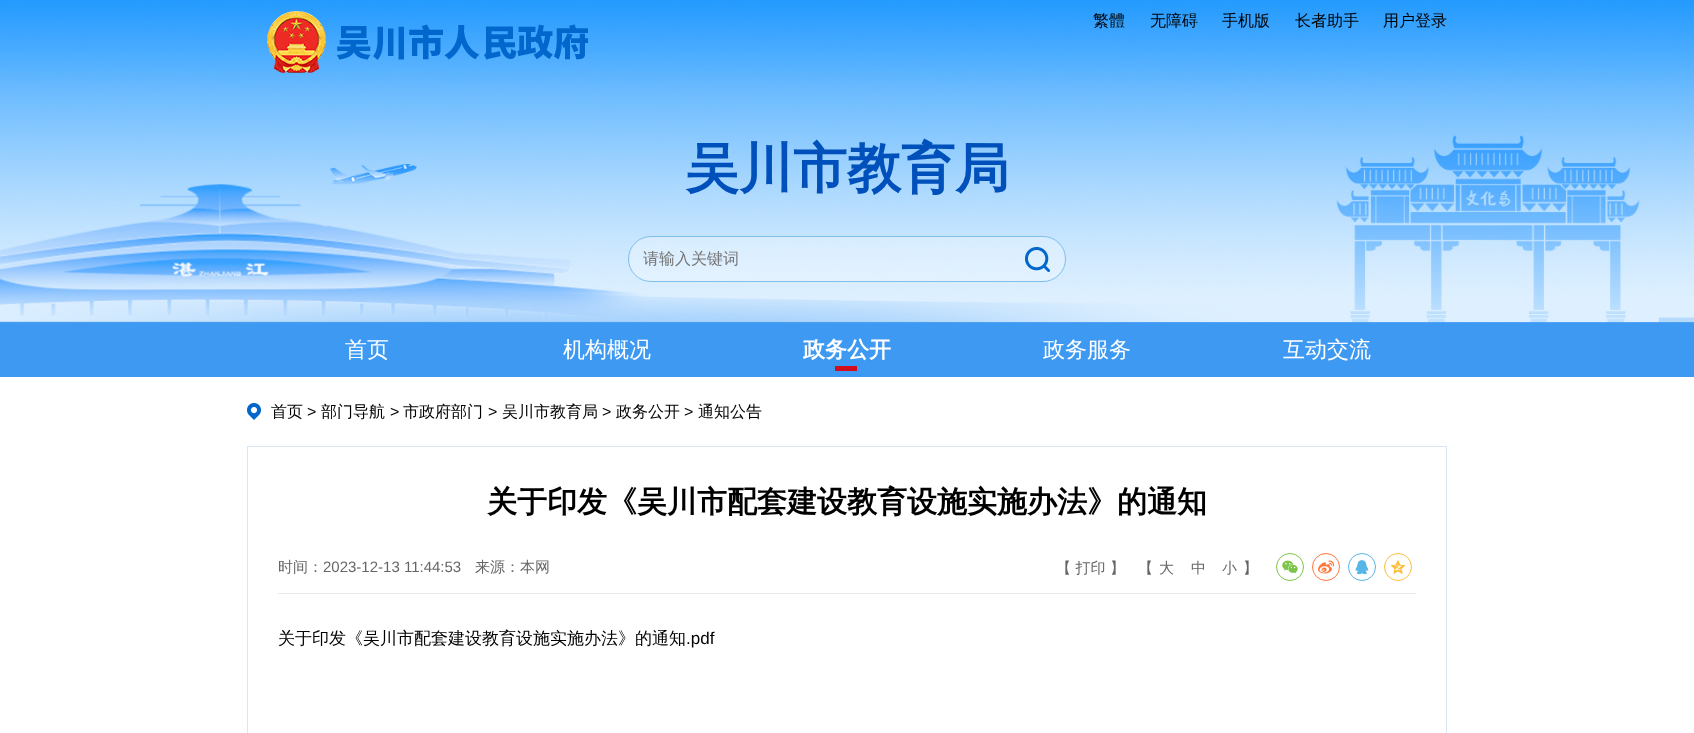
<?xml version="1.0" encoding="UTF-8"?>
<svg xmlns="http://www.w3.org/2000/svg" xmlns:xlink="http://www.w3.org/1999/xlink" width="1694" height="733">
  <rect width="100%" height="100%" fill="#ffffff" />
  <image x="0" y="0" width="1694" height="323" xlink:href="image1.png" />
  <image x="267" y="11" width="321" height="62" xlink:href="image2.png" />
  <rect x="628.5" y="236.5" width="437" height="45" rx="22.5" fill="#ffffff" fill-opacity="0.3" stroke="#80beeb" />
  <image x="1025" y="247" width="25" height="25" xlink:href="image3.png" />
  <rect y="323" width="1694" height="54" fill="#3e99f3" />
  <rect x="835" y="366" width="22" height="5" fill="#d40d1c" />
  <image x="247" y="403" width="14" height="17" xlink:href="image4.png" />
  <rect x="247.5" y="446.5" width="1199" height="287" fill="none" stroke="#d9e6f3" />
  <rect x="278" y="593" width="1138" height="1" fill="#e9e9e9" />
  <circle cx="1290" cy="567" r="13.5" fill="none" stroke="#7bc549" />
  <image x="1282" y="560" width="16" height="14" xlink:href="image5.png" />
  <circle cx="1326" cy="567" r="13.5" fill="none" stroke="#ff763b" />
  <image x="1318" y="560" width="16" height="14" xlink:href="image6.png" />
  <circle cx="1362" cy="567" r="13.5" fill="none" stroke="#56b6e7" />
  <image x="1355" y="560" width="14" height="15" xlink:href="image7.png" />
  <circle cx="1398" cy="567" r="13.5" fill="none" stroke="#fdbe3d" />
  <image x="1390" y="560" width="16" height="14" xlink:href="image8.png" />
  <text x="1093" y="26" style="font-family: WenQuanYi Zen Hei; font-size: 16px; font-weight: 500; fill: #000000">繁體</text>
  <text x="1150" y="26" style="font-family: WenQuanYi Zen Hei; font-size: 16px; font-weight: 500; fill: #000000">无障碍</text>
  <text x="1222" y="26" style="font-family: WenQuanYi Zen Hei; font-size: 16px; font-weight: 500; fill: #000000">手机版</text>
  <text x="1295" y="26" style="font-family: WenQuanYi Zen Hei; font-size: 16px; font-weight: 500; fill: #000000">长者助手</text>
  <text x="1383" y="26" style="font-family: WenQuanYi Zen Hei; font-size: 16px; font-weight: 500; fill: #000000">用户登录</text>
  <text x="685" y="187" style="font-family: WenQuanYi Zen Hei; font-size: 54px; font-weight: bold; fill: #0050bc">吴川市教育局</text>
  <text x="643" y="264" style="font-family: WenQuanYi Zen Hei; font-size: 16px; font-weight: 500; fill: #757575">请输入关键词</text>
  <text x="345" y="357" style="font-family: WenQuanYi Zen Hei; font-size: 22px; font-weight: 500; fill: #ffffff">首页</text>
  <text x="563" y="357" style="font-family: WenQuanYi Zen Hei; font-size: 22px; font-weight: 500; fill: #ffffff">机构概况</text>
  <text x="803" y="357" style="font-family: WenQuanYi Zen Hei; font-size: 22px; font-weight: bold; fill: #ffffff">政务公开</text>
  <text x="1043" y="357" style="font-family: WenQuanYi Zen Hei; font-size: 22px; font-weight: 500; fill: #ffffff">政务服务</text>
  <text x="1283" y="357" style="font-family: WenQuanYi Zen Hei; font-size: 22px; font-weight: 500; fill: #ffffff">互动交流</text>
  <text x="271" y="417" style="font-family: WenQuanYi Zen Hei; font-size: 16px; font-weight: 500; fill: #000000">首页</text>
  <text x="307" y="417" style="font-family: Liberation Sans; font-size: 16px; fill: #000000">&gt;</text>
  <text x="321" y="417" style="font-family: WenQuanYi Zen Hei; font-size: 16px; font-weight: 500; fill: #000000">部门导航</text>
  <text x="390" y="417" style="font-family: Liberation Sans; font-size: 16px; fill: #000000">&gt;</text>
  <text x="403" y="417" style="font-family: WenQuanYi Zen Hei; font-size: 16px; font-weight: 500; fill: #000000">市政府部门</text>
  <text x="488" y="417" style="font-family: Liberation Sans; font-size: 16px; fill: #000000">&gt;</text>
  <text x="502" y="417" style="font-family: WenQuanYi Zen Hei; font-size: 16px; font-weight: 500; fill: #000000">吴川市教育局</text>
  <text x="602" y="417" style="font-family: Liberation Sans; font-size: 16px; fill: #000000">&gt;</text>
  <text x="616" y="417" style="font-family: WenQuanYi Zen Hei; font-size: 16px; font-weight: 500; fill: #000000">政务公开</text>
  <text x="684" y="417" style="font-family: Liberation Sans; font-size: 16px; fill: #000000">&gt;</text>
  <text x="698" y="417" style="font-family: WenQuanYi Zen Hei; font-size: 16px; font-weight: 500; fill: #000000">通知公告</text>
  <text x="487" y="512" style="font-family: WenQuanYi Zen Hei; font-size: 30px; font-weight: bold; fill: #000000">关于印发《吴川市配套建设教育设施实施办法》的通知</text>
  <text x="278" y="572" style="font-family: WenQuanYi Zen Hei; font-size: 15px; font-weight: 500; fill: #666666">时间：</text>
  <text x="323" y="572" style="font-family: Liberation Sans; font-size: 15px; fill: #666666">2023-12-13 11:44:53</text>
  <text x="475" y="572" style="font-family: WenQuanYi Zen Hei; font-size: 15px; font-weight: 500; fill: #666666">来源：本网</text>
  <text x="1056" y="573" style="font-family: WenQuanYi Zen Hei; font-size: 15px; font-weight: 500; fill: #666666">【 打印 】</text>
  <text x="1138" y="573" style="font-family: WenQuanYi Zen Hei; font-size: 15px; font-weight: 500; fill: #666666">【</text>
  <text x="1159" y="573" style="font-family: WenQuanYi Zen Hei; font-size: 15px; font-weight: 500; fill: #666666">大</text>
  <text x="1191" y="573" style="font-family: WenQuanYi Zen Hei; font-size: 15px; font-weight: 500; fill: #666666">中</text>
  <text x="1222" y="573" style="font-family: WenQuanYi Zen Hei; font-size: 15px; font-weight: 500; fill: #666666">小</text>
  <text x="1243" y="573" style="font-family: WenQuanYi Zen Hei; font-size: 15px; font-weight: 500; fill: #666666">】</text>
  <text x="278" y="644" style="font-family: WenQuanYi Zen Hei; font-size: 17px; font-weight: 500; fill: #000000">关于印发《吴川市配套建设教育设施实施办法》的通知</text>
  <text x="686" y="644" style="font-family: Liberation Sans; font-size: 17px; fill: #000000">.pdf</text>
</svg>
